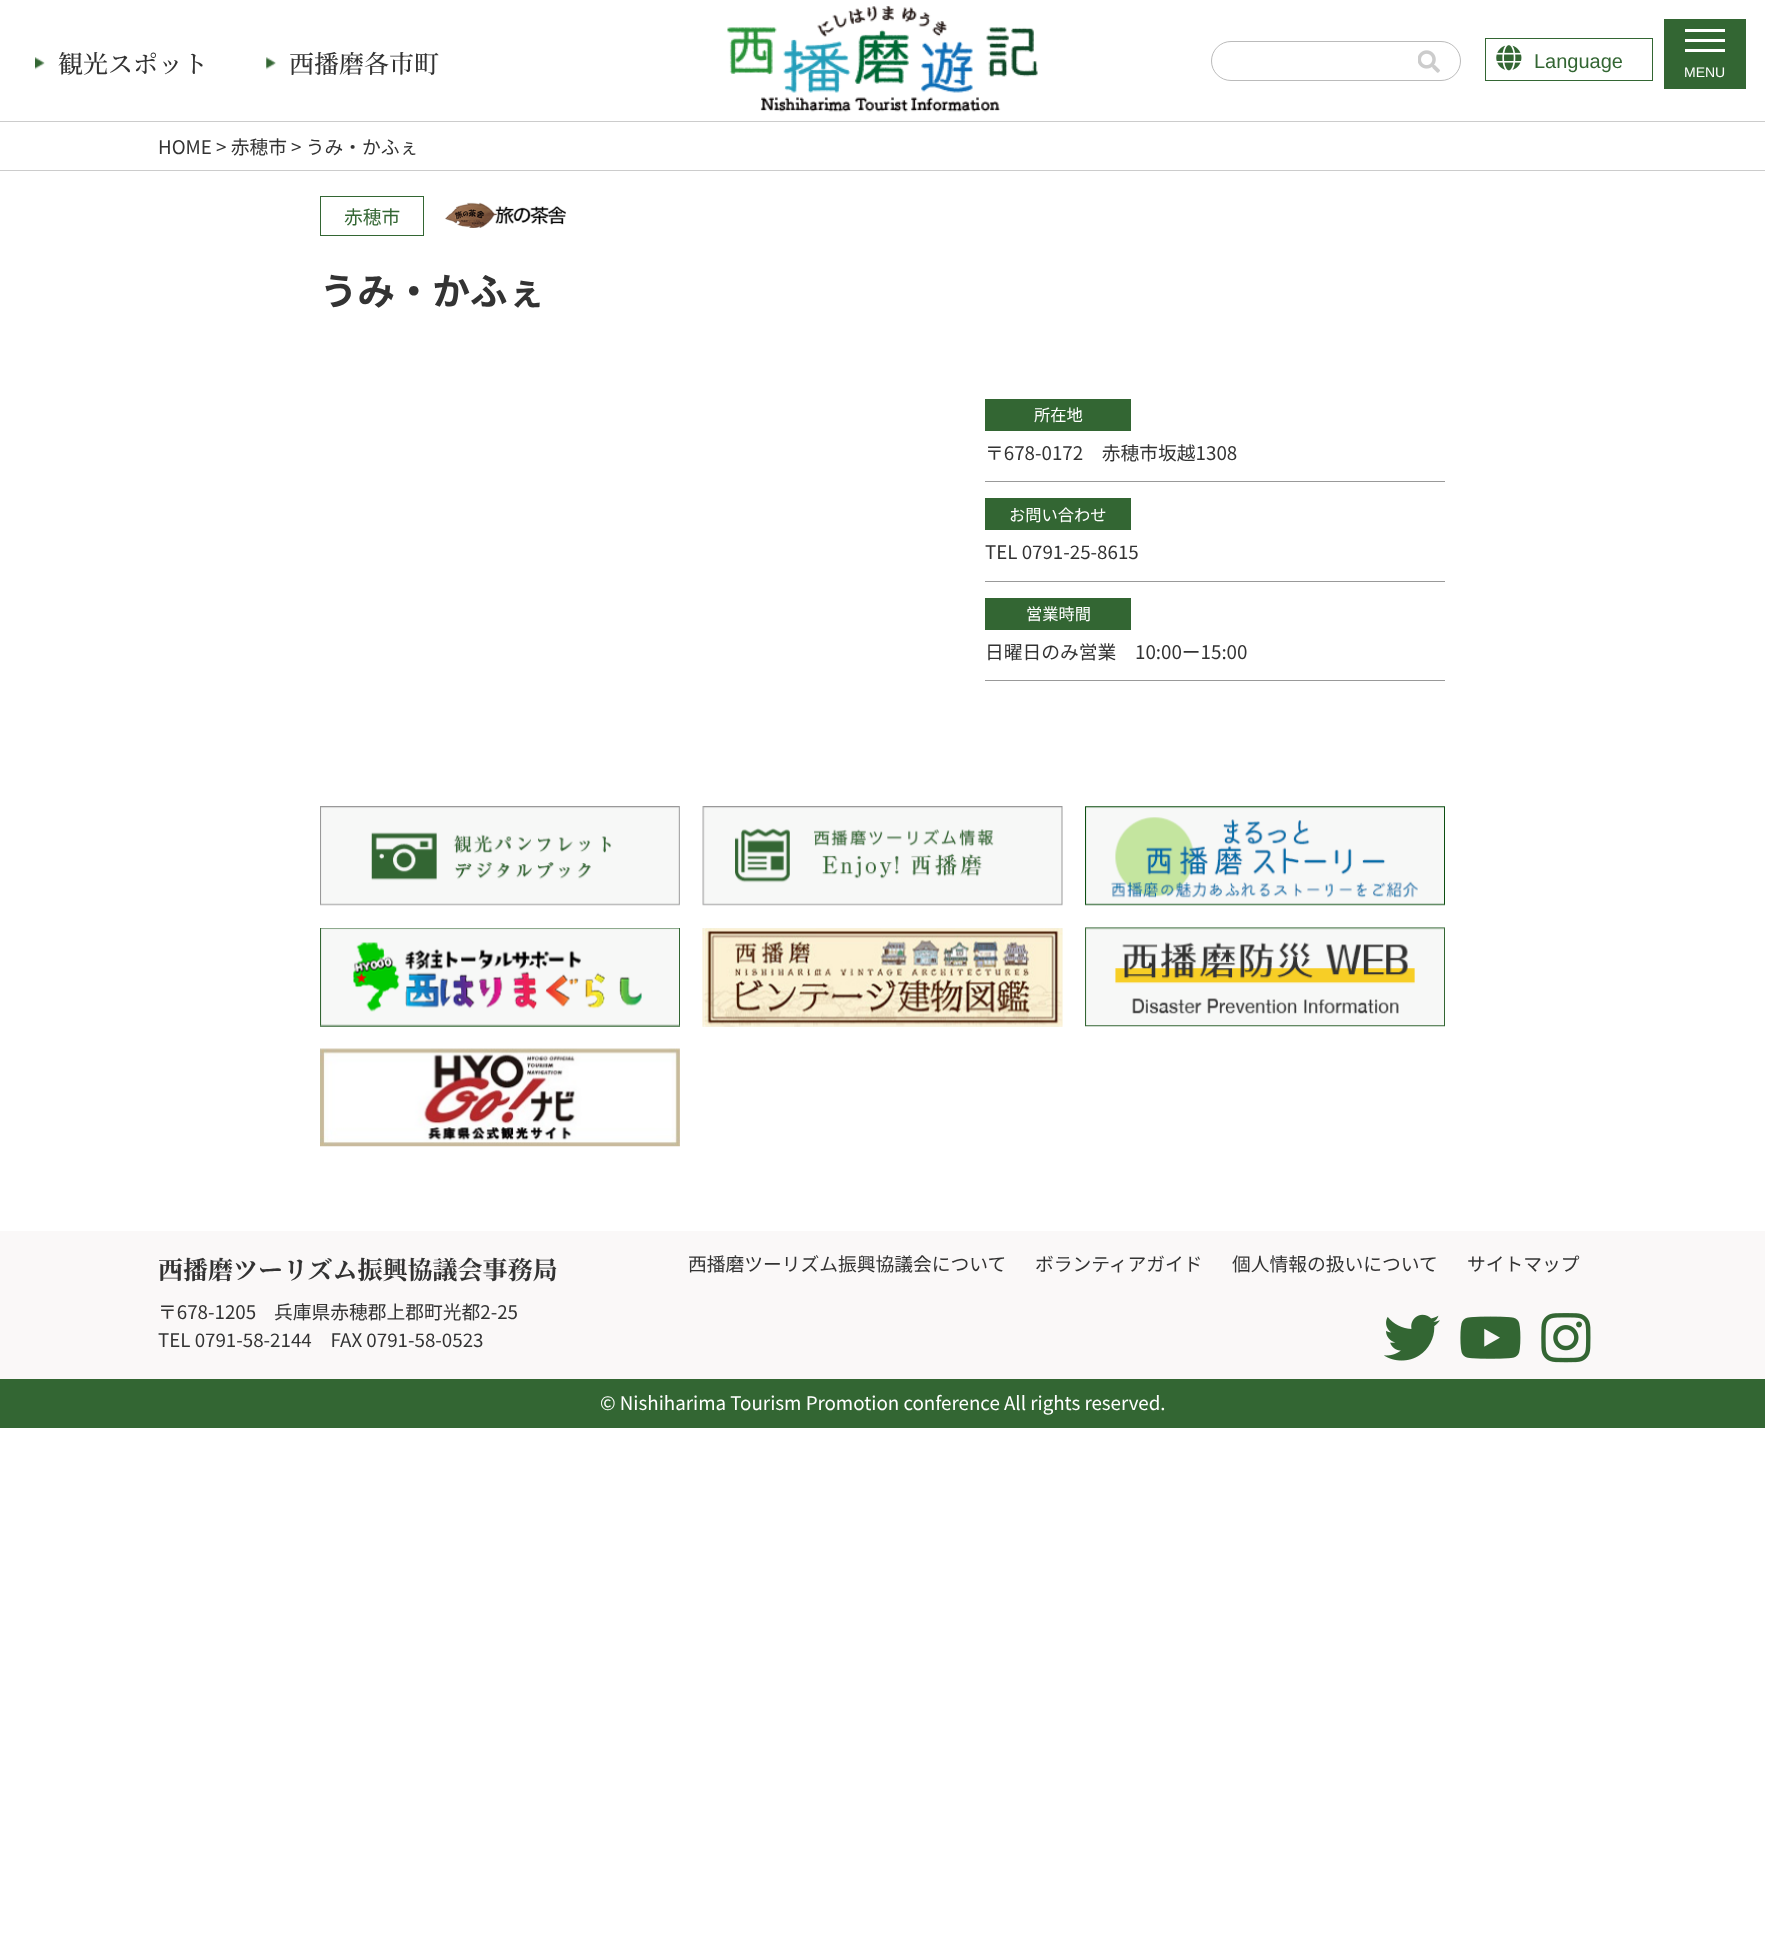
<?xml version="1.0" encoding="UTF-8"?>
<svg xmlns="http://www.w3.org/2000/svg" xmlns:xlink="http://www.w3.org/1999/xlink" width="1765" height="1957">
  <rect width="100%" height="100%" fill="#ffffff" />
  <rect y="121" width="1765" height="1" fill="#cccccc" />
  <image x="727" y="6" width="311" height="106" xlink:href="image1.png" />
  <image x="35" y="57" width="10" height="13" xlink:href="image2.png" />
  <image x="266" y="57" width="10" height="13" xlink:href="image3.png" />
  <rect x="1211.5" y="41.5" width="249" height="39" rx="19.5" fill="none" stroke="#bbbbbb" />
  <image x="1418" y="50" width="22" height="23" xlink:href="image4.png" />
  <rect x="1664" y="19" width="82" height="70" fill="#336633" />
  <rect x="1685" y="39" width="40" height="3" fill="#ffffff" />
  <rect x="1685" y="29" width="40" height="3" fill="#ffffff" />
  <rect x="1685" y="49" width="40" height="3" fill="#ffffff" />
  <rect x="1485.5" y="38.5" width="167" height="42" fill="none" stroke="#336633" />
  <image x="1496" y="45" width="26" height="26" xlink:href="image5.png" />
  <rect y="170" width="1765" height="1" fill="#cccccc" />
  <rect x="320.5" y="196.5" width="103" height="39" fill="none" stroke="#336633" />
  <image x="445" y="202" width="122" height="26" xlink:href="image6.png" />
  <rect x="985" y="481" width="460" height="1" fill="#999999" />
  <rect x="985" y="399" width="146" height="32" fill="#336633" />
  <rect x="985" y="581" width="460" height="1" fill="#999999" />
  <rect x="985" y="498" width="146" height="32" fill="#336633" />
  <rect x="985" y="680" width="460" height="1" fill="#999999" />
  <rect x="985" y="598" width="146" height="32" fill="#336633" />
  <image x="320" y="806" width="360" height="100" xlink:href="image7.png" />
  <image x="702" y="806" width="361" height="100" xlink:href="image8.png" />
  <image x="1085" y="806" width="360" height="100" xlink:href="image9.png" />
  <image x="320" y="928" width="360" height="99" xlink:href="image10.png" />
  <image x="702" y="928" width="361" height="99" xlink:href="image11.png" />
  <image x="1085" y="927" width="360" height="100" xlink:href="image12.png" />
  <image x="320" y="1048" width="360" height="99" xlink:href="image13.png" />
  <rect y="1231" width="1765" height="148" fill="#faf8f8" />
  <image x="1384" y="1314" width="56" height="47" xlink:href="image14.png" />
  <image x="1460" y="1316" width="61" height="43" xlink:href="image15.png" />
  <image x="1541" y="1313" width="50" height="50" xlink:href="image16.png" />
  <rect y="1379" width="1765" height="49" fill="#336633" />
  <text x="58" y="73" style="font-family: Noto Serif JP; font-size: 25px; font-weight: 500; fill: #333333">観光スポット</text>
  <text x="289" y="73" style="font-family: Noto Serif JP; font-size: 25px; font-weight: 500; fill: #333333">西播磨各市町</text>
  <text x="1684" y="77" style="font-family: Liberation Sans; font-size: 14px; fill: #ffffff">MENU</text>
  <text x="1534" y="68" style="font-family: Liberation Sans; font-size: 20px; fill: #336633">Language</text>
  <text x="158" y="154" style="font-family: Noto Sans JP; font-size: 18.75px; fill: #333333">HOME &gt; 赤穂市 &gt; うみ・かふぇ</text>
  <text x="344" y="224" style="font-family: Noto Sans JP; font-size: 18.75px; fill: #336633">赤穂市</text>
  <text x="320" y="305" style="font-family: Noto Sans JP; font-size: 37.5px; font-weight: bold; fill: #333333">うみ・かふぇ</text>
  <text x="1034" y="421" style="font-family: Noto Sans JP; font-size: 16.25px; fill: #ffffff">所在地</text>
  <text x="985" y="460" style="font-family: Noto Sans JP; font-size: 18.75px; fill: #333333">〒678-0172　赤穂市坂越1308</text>
  <text x="1009" y="521" style="font-family: Noto Sans JP; font-size: 16.25px; fill: #ffffff">お問い合わせ</text>
  <text x="985" y="559" style="font-family: Noto Sans JP; font-size: 18.75px; fill: #333333">TEL 0791-25-8615</text>
  <text x="1026" y="620" style="font-family: Noto Sans JP; font-size: 16.25px; fill: #ffffff">営業時間</text>
  <text x="985" y="659" style="font-family: Noto Sans JP; font-size: 18.75px; fill: #333333">日曜日のみ営業　10:00ー15:00</text>
  <text x="158" y="1279" style="font-family: Noto Serif JP; font-size: 25px; font-weight: bold; fill: #333333">西播磨ツーリズム振興協議会事務局</text>
  <text x="158" y="1319" style="font-family: Noto Sans JP; font-size: 18.75px; fill: #333333">〒678-1205</text>
  <text x="274" y="1319" style="font-family: Noto Sans JP; font-size: 18.75px; fill: #333333">兵庫県赤穂郡上郡町光都2-25</text>
  <text x="158" y="1347" style="font-family: Noto Sans JP; font-size: 18.75px; fill: #333333">TEL 0791-58-2144　FAX 0791-58-0523</text>
  <text x="688" y="1271" style="font-family: Noto Sans JP; font-size: 18.75px; fill: #333333">西播磨ツーリズム振興協議会について</text>
  <text x="1035" y="1271" style="font-family: Noto Sans JP; font-size: 18.75px; fill: #333333">ボランティアガイド</text>
  <text x="1232" y="1271" style="font-family: Noto Sans JP; font-size: 18.75px; fill: #333333">個人情報の扱いについて</text>
  <text x="1467" y="1271" style="font-family: Noto Sans JP; font-size: 18.75px; fill: #333333">サイトマップ</text>
  <text x="600" y="1410" style="font-family: Noto Sans JP; font-size: 18.75px; fill: #ffffff">© Nishiharima Tourism Promotion conference All rights reserved.</text>
</svg>
